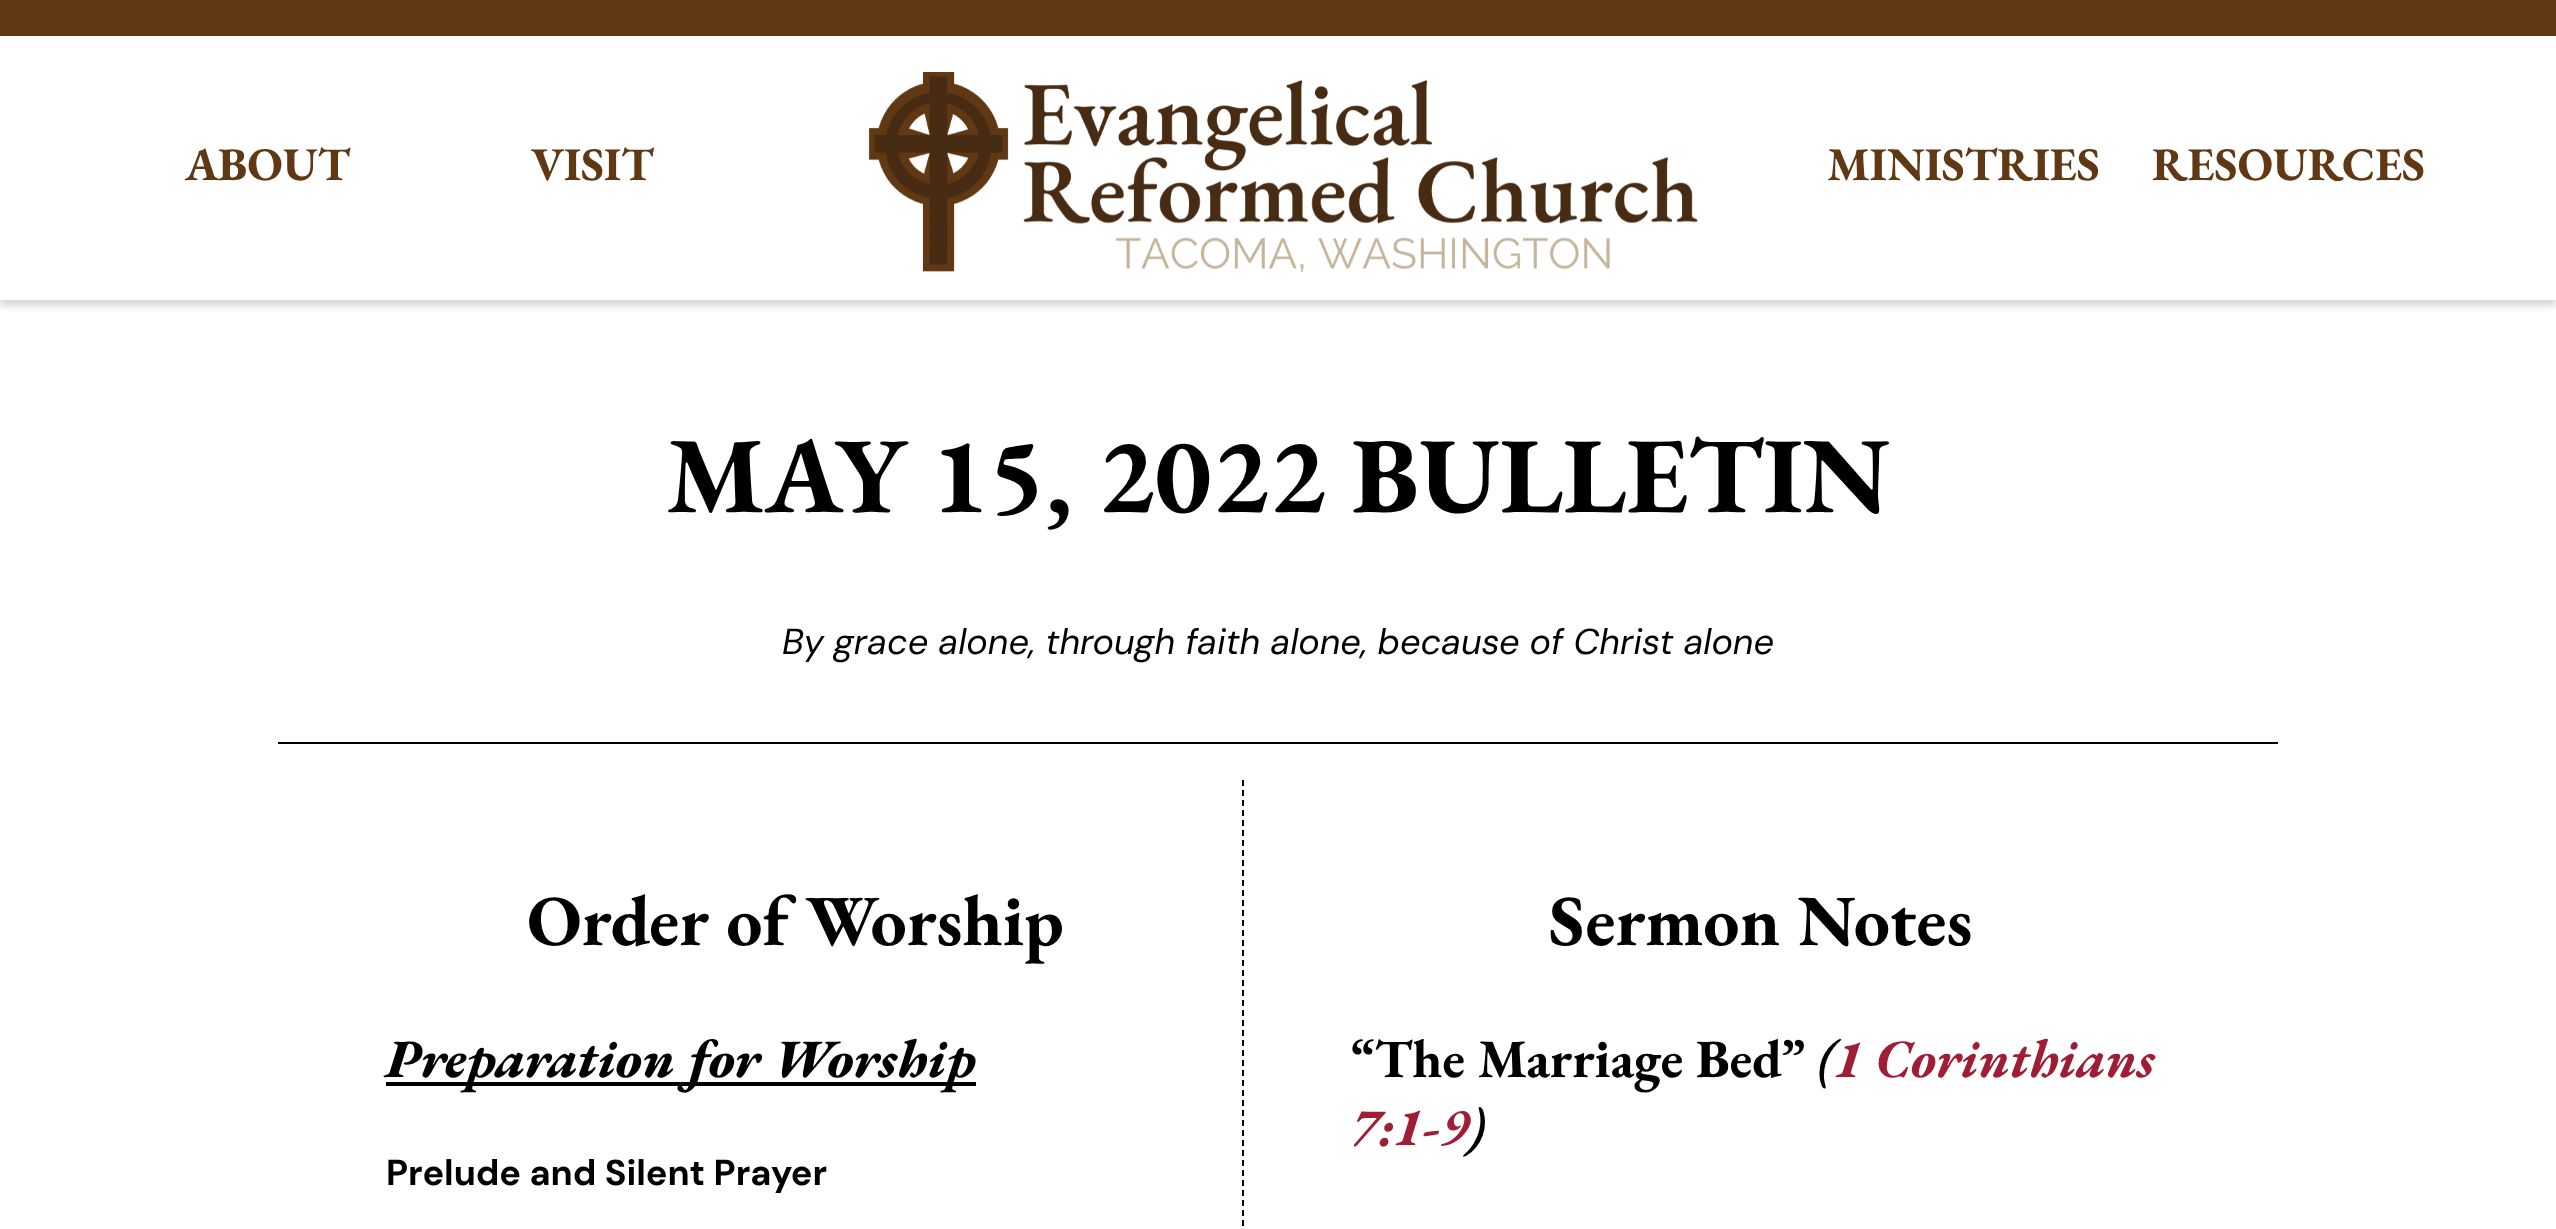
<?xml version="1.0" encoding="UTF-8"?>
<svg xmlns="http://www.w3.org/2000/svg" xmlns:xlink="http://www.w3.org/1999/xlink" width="2556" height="1229">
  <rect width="100%" height="100%" fill="#ffffff" />
  <rect y="6" width="2556" height="300" fill="#646464" fill-opacity="0.25" filter="blur(3px)" />
  <rect y="36" width="2556" height="264" fill="#ffffff" />
  <rect width="2556" height="36" fill="#603813" />
  <image x="868" y="72" width="830" height="201" xlink:href="image1.png" />
  <rect x="278" y="742" width="2000" height="2" fill="#000000" />
  <path d="M 1243 780 v 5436" fill="none" stroke="#000000" stroke-width="2" stroke-dasharray="6 4" />
  <rect x="386" y="1082" width="590" height="4" fill="#000000" />
  <text x="185" y="180" style="font-family: EB Garamond; font-size: 46.75px; font-weight: bold; fill: #603813">ABOUT</text>
  <text x="531" y="180" style="font-family: EB Garamond; font-size: 46.75px; font-weight: bold; fill: #603813">VISIT</text>
  <text x="1827" y="180" style="font-family: EB Garamond; font-size: 46.75px; font-weight: bold; fill: #603813">MINISTRIES</text>
  <text x="2152" y="180" style="font-family: EB Garamond; font-size: 46.75px; font-weight: bold; fill: #603813">RESOURCES</text>
  <text x="666" y="512" style="font-family: EB Garamond; font-size: 108px; font-weight: bold; fill: #000000">MAY 15, 2022 BULLETIN</text>
  <text x="782" y="654" style="font-family: DM Sans; font-size: 36px; font-style: italic; fill: #000000">By grace alone, through faith alone, because of Christ alone</text>
  <text x="527" y="945" style="font-family: EB Garamond; font-size: 72px; font-weight: bold; fill: #000000">Order of Worship</text>
  <text x="386" y="1077" style="font-family: EB Garamond; font-size: 54px; font-weight: 800; font-style: italic; fill: #000000">Preparation for Worship</text>
  <text x="386" y="1185" style="font-family: DM Sans; font-size: 36px; font-weight: bold; fill: #000000">Prelude and Silent Prayer</text>
  <text x="1549" y="945" style="font-family: EB Garamond; font-size: 72px; font-weight: bold; fill: #000000">Sermon Notes</text>
  <text x="1351" y="1077" style="font-family: EB Garamond; font-size: 54px; font-weight: bold; fill: #000000">“The Marriage Bed”</text>
  <text x="1818" y="1077" style="font-family: EB Garamond; font-size: 54px; font-weight: bold; font-style: italic; fill: #000000">(</text>
  <text x="1834" y="1077" style="font-family: EB Garamond; font-size: 54px; font-weight: bold; font-style: italic; fill: #9f1d35">1 Corinthians</text>
  <text x="1351" y="1145" style="font-family: EB Garamond; font-size: 54px; font-weight: bold; font-style: italic; fill: #9f1d35">7:1-9</text>
  <text x="1469" y="1145" style="font-family: EB Garamond; font-size: 54px; font-weight: bold; font-style: italic; fill: #000000">)</text>
</svg>
